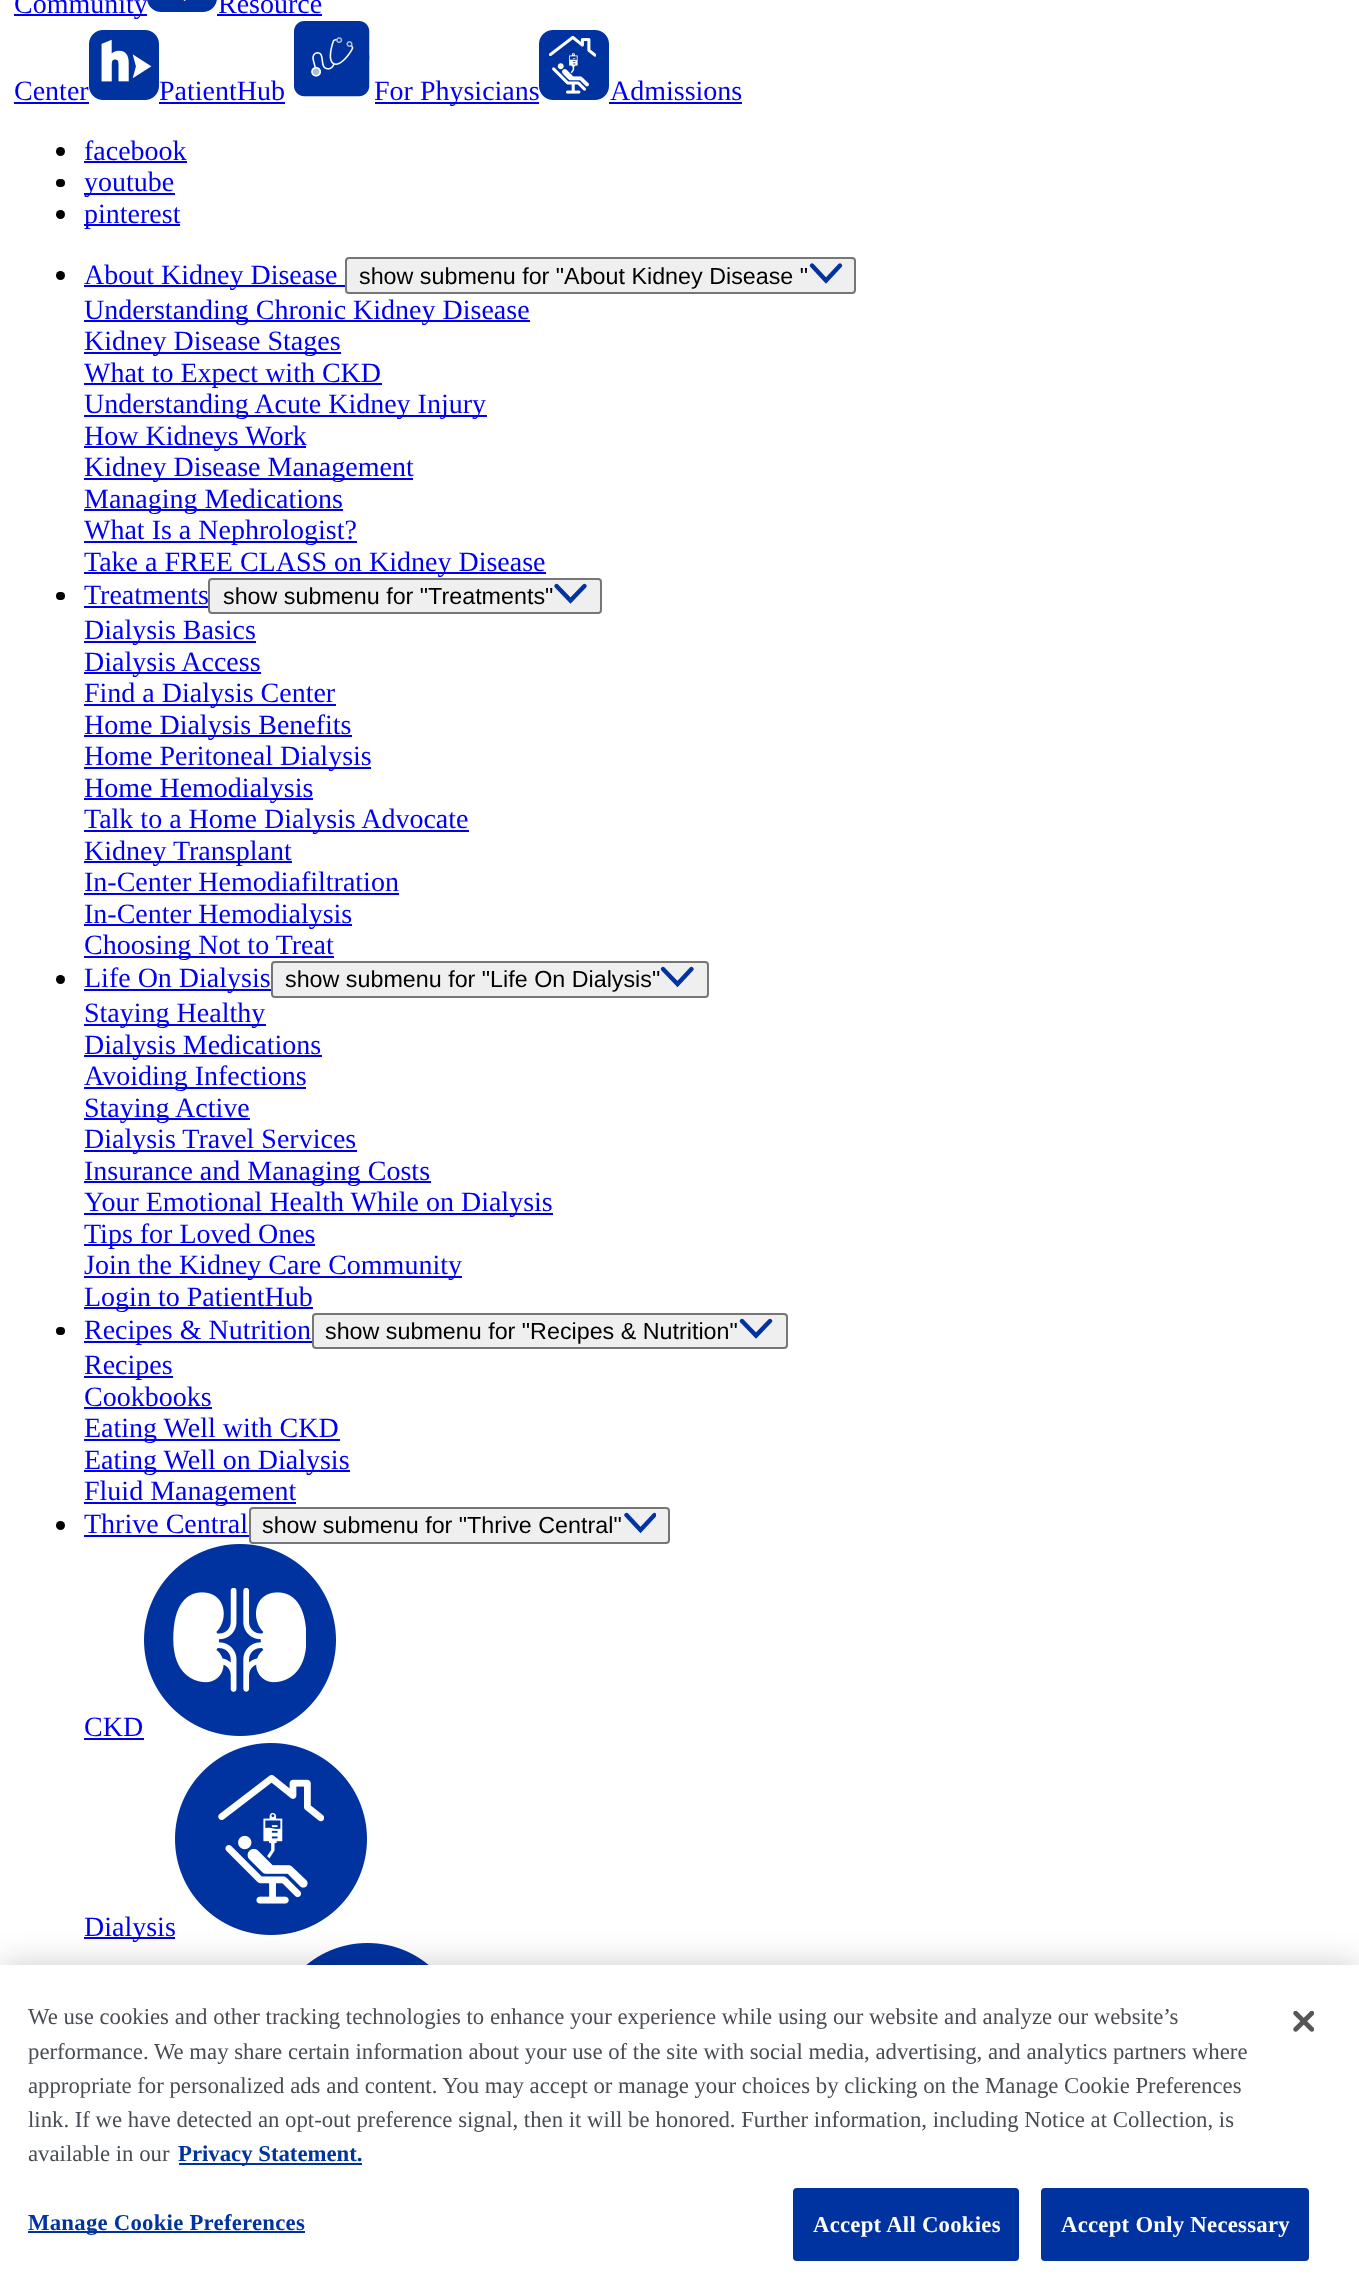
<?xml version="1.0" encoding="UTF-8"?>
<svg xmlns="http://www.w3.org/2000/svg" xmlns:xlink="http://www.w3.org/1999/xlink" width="1359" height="2296">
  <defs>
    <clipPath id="clip1"><rect x="623" y="1512" width="33" height="21" /></clipPath>
  </defs>
  <rect width="100%" height="100%" fill="#ffffff" />
  <rect x="14" y="14" width="133" height="2" fill="#0000ee" />
  <rect x="217" y="14" width="105" height="2" fill="#0000ee" />
  <rect x="14" y="102" width="75" height="2" fill="#0000ee" />
  <image x="89" y="30" width="70" height="70" xlink:href="image2.png" />
  <rect x="159" y="102" width="126" height="2" fill="#0000ee" />
  <image x="294" y="21" width="76" height="76" xlink:href="image3.png" />
  <rect x="375" y="102" width="164" height="2" fill="#0000ee" />
  <image x="539" y="30" width="70" height="70" xlink:href="image4.png" />
  <rect x="609" y="102" width="133" height="2" fill="#0000ee" />
  <circle cx="60.5" cy="151.5" r="4.5" fill="#000000" />
  <rect x="84" y="161" width="103" height="2" fill="#0000ee" />
  <rect x="56" y="179" width="9" height="8" rx="4" fill="#000000" />
  <rect x="84" y="193" width="91" height="2" fill="#0000ee" />
  <circle cx="60.5" cy="214.5" r="4.5" fill="#000000" />
  <rect x="84" y="224" width="96" height="2" fill="#0000ee" />
  <circle cx="60.5" cy="275.5" r="4.5" fill="#000000" />
  <rect x="84" y="285" width="261" height="2" fill="#0000ee" />
  <rect x="346" y="258" width="509" height="35" rx="3" fill="#efefef" stroke="#767676" stroke-width="2" />
  <path d="M 840 265.5 l -14 15 l -14 -15" fill="none" stroke="#0033a0" stroke-width="4.4" stroke-linecap="round" />
  <rect x="84" y="320" width="446" height="2" fill="#0000ee" />
  <rect x="84" y="352" width="257" height="2" fill="#0000ee" />
  <rect x="84" y="383" width="298" height="2" fill="#0000ee" />
  <rect x="84" y="415" width="403" height="2" fill="#0000ee" />
  <rect x="84" y="446" width="222" height="2" fill="#0000ee" />
  <rect x="84" y="478" width="329" height="2" fill="#0000ee" />
  <rect x="84" y="509" width="259" height="2" fill="#0000ee" />
  <rect x="84" y="541" width="273" height="2" fill="#0000ee" />
  <rect x="84" y="572" width="462" height="2" fill="#0000ee" />
  <rect x="56" y="592" width="9" height="8" rx="4" fill="#000000" />
  <rect x="84" y="606" width="124" height="2" fill="#0000ee" />
  <rect x="209" y="579" width="392" height="34" rx="3" fill="#efefef" stroke="#767676" stroke-width="2" />
  <path d="M 584.5 586 l -14 14.5 l -14 -14.5" fill="none" stroke="#0033a0" stroke-width="4.4" stroke-linecap="round" />
  <rect x="84" y="641" width="172" height="2" fill="#0000ee" />
  <rect x="84" y="672" width="177" height="2" fill="#0000ee" />
  <rect x="84" y="704" width="252" height="2" fill="#0000ee" />
  <rect x="84" y="735" width="268" height="2" fill="#0000ee" />
  <rect x="84" y="767" width="287" height="2" fill="#0000ee" />
  <rect x="84" y="798" width="229" height="2" fill="#0000ee" />
  <rect x="84" y="830" width="385" height="2" fill="#0000ee" />
  <rect x="84" y="861" width="208" height="2" fill="#0000ee" />
  <rect x="84" y="893" width="315" height="2" fill="#0000ee" />
  <rect x="84" y="924" width="268" height="2" fill="#0000ee" />
  <rect x="84" y="956" width="250" height="2" fill="#0000ee" />
  <circle cx="60.5" cy="979.5" r="4.5" fill="#000000" />
  <rect x="84" y="989" width="187" height="2" fill="#0000ee" />
  <rect x="272" y="962" width="436" height="35" rx="3" fill="#efefef" stroke="#767676" stroke-width="2" />
  <path d="M 691.5 969 l -14 15 l -14.5 -15" fill="none" stroke="#0033a0" stroke-width="4.4" stroke-linecap="round" />
  <rect x="84" y="1024" width="182" height="2" fill="#0000ee" />
  <rect x="84" y="1055" width="238" height="2" fill="#0000ee" />
  <rect x="84" y="1087" width="222" height="2" fill="#0000ee" />
  <rect x="84" y="1118" width="166" height="2" fill="#0000ee" />
  <rect x="84" y="1150" width="273" height="2" fill="#0000ee" />
  <rect x="84" y="1181" width="347" height="2" fill="#0000ee" />
  <rect x="84" y="1213" width="469" height="2" fill="#0000ee" />
  <rect x="84" y="1244" width="231" height="2" fill="#0000ee" />
  <rect x="84" y="1276" width="378" height="2" fill="#0000ee" />
  <rect x="84" y="1307" width="229" height="2" fill="#0000ee" />
  <rect x="56" y="1327" width="9" height="8" rx="4" fill="#000000" />
  <rect x="84" y="1341" width="228" height="2" fill="#0000ee" />
  <rect x="313" y="1314" width="474" height="34" rx="3" fill="#efefef" stroke="#767676" stroke-width="2" />
  <path d="M 770 1321 l -14 14.5 l -14 -14.5" fill="none" stroke="#0033a0" stroke-width="4.4" stroke-linecap="round" />
  <rect x="84" y="1376" width="89" height="2" fill="#0000ee" />
  <rect x="84" y="1407" width="128" height="2" fill="#0000ee" />
  <rect x="84" y="1439" width="256" height="2" fill="#0000ee" />
  <rect x="84" y="1470" width="266" height="2" fill="#0000ee" />
  <rect x="84" y="1502" width="212" height="2" fill="#0000ee" />
  <circle cx="60.5" cy="1525.5" r="4.5" fill="#000000" />
  <rect x="84" y="1535" width="165" height="2" fill="#0000ee" />
  <rect x="250" y="1508" width="419" height="35" rx="3" fill="#efefef" stroke="#767676" stroke-width="2" />
  <g clip-path="url(#clip1)">
    <path d="M 654.5 1515 l -14 15 l -14 -15" fill="none" stroke="#0033a0" stroke-width="4.4" stroke-linecap="round" />
  </g>
  <rect x="84" y="1738" width="60" height="2" fill="#0000ee" />
  <image x="144" y="1544" width="192" height="192" xlink:href="image5.png" />
  <rect x="84" y="1937" width="91" height="2" fill="#0000ee" />
  <image x="175" y="1743" width="192" height="192" xlink:href="image6.png" />
  <image x="306" y="1943" width="123" height="22" xlink:href="image7.png" />
  <rect y="1965" width="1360" height="331" fill="#000000" fill-opacity="0.2" filter="blur(16px)" />
  <rect y="1965" width="1359" height="331" fill="#ffffff" />
  <rect x="179" y="2163" width="183" height="2" fill="#0033a0" />
  <rect x="28" y="2231" width="277" height="2" fill="#0033a0" />
  <rect x="794" y="2189" width="224" height="71" rx="3" fill="#0033a0" stroke="#0033a0" stroke-width="2" />
  <rect x="1042" y="2189" width="266" height="71" rx="3" fill="#0033a0" stroke="#0033a0" stroke-width="2" />
  <image x="1293" y="2011" width="21" height="21" xlink:href="image8.png" />
  <text x="14" y="13" style="font-family: Liberation Serif; font-size: 28px; fill: #0000ee">Community</text>
  <image x="147" y="0" width="70" height="12" xlink:href="image1.png" />
  <text x="218" y="13" style="font-family: Liberation Serif; font-size: 28px; fill: #0000ee">Resource</text>
  <text x="14" y="100" style="font-family: Liberation Serif; font-size: 28px; fill: #0000ee">Center</text>
  <text x="159" y="100" style="font-family: Liberation Serif; font-size: 28px; fill: #0000ee">PatientHub</text>
  <text x="374" y="100" style="font-family: Liberation Serif; font-size: 28px; fill: #0000ee">For Physicians</text>
  <text x="610" y="100" style="font-family: Liberation Serif; font-size: 28px; fill: #0000ee">Admissions</text>
  <text x="84" y="160" style="font-family: Liberation Serif; font-size: 28px; fill: #0000ee">facebook</text>
  <text x="84" y="191" style="font-family: Liberation Serif; font-size: 28px; fill: #0000ee">youtube</text>
  <text x="84" y="223" style="font-family: Liberation Serif; font-size: 28px; fill: #0000ee">pinterest</text>
  <text x="84" y="284" style="font-family: Liberation Serif; font-size: 28px; fill: #0000ee">About Kidney Disease</text>
  <text x="359" y="284" style="font-family: Liberation Sans; font-size: 23.3px; fill: #000000">show submenu for "About Kidney Disease "</text>
  <text x="84" y="319" style="font-family: Liberation Serif; font-size: 28px; fill: #0000ee">Understanding Chronic Kidney Disease</text>
  <text x="84" y="350" style="font-family: Liberation Serif; font-size: 28px; fill: #0000ee">Kidney Disease Stages</text>
  <text x="84" y="382" style="font-family: Liberation Serif; font-size: 28px; fill: #0000ee">What to Expect with CKD</text>
  <text x="84" y="413" style="font-family: Liberation Serif; font-size: 28px; fill: #0000ee">Understanding Acute Kidney Injury</text>
  <text x="84" y="445" style="font-family: Liberation Serif; font-size: 28px; fill: #0000ee">How Kidneys Work</text>
  <text x="84" y="476" style="font-family: Liberation Serif; font-size: 28px; fill: #0000ee">Kidney Disease Management</text>
  <text x="84" y="508" style="font-family: Liberation Serif; font-size: 28px; fill: #0000ee">Managing Medications</text>
  <text x="84" y="539" style="font-family: Liberation Serif; font-size: 28px; fill: #0000ee">What Is a Nephrologist?</text>
  <text x="84" y="571" style="font-family: Liberation Serif; font-size: 28px; fill: #0000ee">Take a FREE CLASS on Kidney Disease</text>
  <text x="84" y="604" style="font-family: Liberation Serif; font-size: 28px; fill: #0000ee">Treatments</text>
  <text x="223" y="604" style="font-family: Liberation Sans; font-size: 23.3px; fill: #000000">show submenu for "Treatments"</text>
  <text x="84" y="639" style="font-family: Liberation Serif; font-size: 28px; fill: #0000ee">Dialysis Basics</text>
  <text x="84" y="671" style="font-family: Liberation Serif; font-size: 28px; fill: #0000ee">Dialysis Access</text>
  <text x="84" y="702" style="font-family: Liberation Serif; font-size: 28px; fill: #0000ee">Find a Dialysis Center</text>
  <text x="84" y="734" style="font-family: Liberation Serif; font-size: 28px; fill: #0000ee">Home Dialysis Benefits</text>
  <text x="84" y="765" style="font-family: Liberation Serif; font-size: 28px; fill: #0000ee">Home Peritoneal Dialysis</text>
  <text x="84" y="797" style="font-family: Liberation Serif; font-size: 28px; fill: #0000ee">Home Hemodialysis</text>
  <text x="84" y="828" style="font-family: Liberation Serif; font-size: 28px; fill: #0000ee">Talk to a Home Dialysis Advocate</text>
  <text x="84" y="860" style="font-family: Liberation Serif; font-size: 28px; fill: #0000ee">Kidney Transplant</text>
  <text x="84" y="891" style="font-family: Liberation Serif; font-size: 28px; fill: #0000ee">In-Center Hemodiafiltration</text>
  <text x="84" y="923" style="font-family: Liberation Serif; font-size: 28px; fill: #0000ee">In-Center Hemodialysis</text>
  <text x="84" y="954" style="font-family: Liberation Serif; font-size: 28px; fill: #0000ee">Choosing Not to Treat</text>
  <text x="84" y="987" style="font-family: Liberation Serif; font-size: 28px; fill: #0000ee">Life On Dialysis</text>
  <text x="285" y="987" style="font-family: Liberation Sans; font-size: 23.3px; fill: #000000">show submenu for "Life On Dialysis"</text>
  <text x="84" y="1022" style="font-family: Liberation Serif; font-size: 28px; fill: #0000ee">Staying Healthy</text>
  <text x="84" y="1054" style="font-family: Liberation Serif; font-size: 28px; fill: #0000ee">Dialysis Medications</text>
  <text x="84" y="1085" style="font-family: Liberation Serif; font-size: 28px; fill: #0000ee">Avoiding Infections</text>
  <text x="84" y="1117" style="font-family: Liberation Serif; font-size: 28px; fill: #0000ee">Staying Active</text>
  <text x="84" y="1148" style="font-family: Liberation Serif; font-size: 28px; fill: #0000ee">Dialysis Travel Services</text>
  <text x="84" y="1180" style="font-family: Liberation Serif; font-size: 28px; fill: #0000ee">Insurance and Managing Costs</text>
  <text x="84" y="1211" style="font-family: Liberation Serif; font-size: 28px; fill: #0000ee">Your Emotional Health While on Dialysis</text>
  <text x="84" y="1243" style="font-family: Liberation Serif; font-size: 28px; fill: #0000ee">Tips for Loved Ones</text>
  <text x="84" y="1274" style="font-family: Liberation Serif; font-size: 28px; fill: #0000ee">Join the Kidney Care Community</text>
  <text x="84" y="1306" style="font-family: Liberation Serif; font-size: 28px; fill: #0000ee">Login to PatientHub</text>
  <text x="84" y="1339" style="font-family: Liberation Serif; font-size: 28px; fill: #0000ee">Recipes &amp; Nutrition</text>
  <text x="325" y="1339" style="font-family: Liberation Sans; font-size: 23.3px; fill: #000000">show submenu for "Recipes &amp; Nutrition"</text>
  <text x="84" y="1374" style="font-family: Liberation Serif; font-size: 28px; fill: #0000ee">Recipes</text>
  <text x="84" y="1406" style="font-family: Liberation Serif; font-size: 28px; fill: #0000ee">Cookbooks</text>
  <text x="84" y="1437" style="font-family: Liberation Serif; font-size: 28px; fill: #0000ee">Eating Well with CKD</text>
  <text x="84" y="1469" style="font-family: Liberation Serif; font-size: 28px; fill: #0000ee">Eating Well on Dialysis</text>
  <text x="84" y="1500" style="font-family: Liberation Serif; font-size: 28px; fill: #0000ee">Fluid Management</text>
  <text x="84" y="1533" style="font-family: Liberation Serif; font-size: 28px; fill: #0000ee">Thrive Central</text>
  <text x="262" y="1533" style="font-family: Liberation Sans; font-size: 23.3px; fill: #000000">show submenu for "Thrive Central"</text>
  <text x="84" y="1736" style="font-family: Liberation Serif; font-size: 28px; fill: #0000ee">CKD</text>
  <text x="84" y="1936" style="font-family: Liberation Serif; font-size: 28px; fill: #0000ee">Dialysis</text>
  <text x="28" y="2024" style="font-family: Liberation Serif; font-size: 22.75px; fill: #484c53">We use cookies and other tracking technologies to enhance your experience while using our website and analyze our website’s</text>
  <text x="28" y="2059" style="font-family: Liberation Serif; font-size: 22.75px; fill: #484c53">performance. We may share certain information about your use of the site with social media, advertising, and analytics partners where</text>
  <text x="28" y="2093" style="font-family: Liberation Serif; font-size: 22.75px; fill: #484c53">appropriate for personalized ads and content. You may accept or manage your choices by clicking on the Manage Cookie Preferences</text>
  <text x="28" y="2127" style="font-family: Liberation Serif; font-size: 22.75px; fill: #484c53">link. If we have detected an opt-out preference signal, then it will be honored. Further information, including Notice at Collection, is</text>
  <text x="28" y="2161" style="font-family: Liberation Serif; font-size: 22.75px; fill: #484c53">available in our</text>
  <text x="178" y="2161" style="font-family: Liberation Serif; font-size: 22.75px; font-weight: bold; fill: #0033a0">Privacy Statement.</text>
  <text x="28" y="2230" style="font-family: Liberation Serif; font-size: 22.75px; font-weight: bold; letter-spacing: 0.25px; fill: #0033a0">Manage Cookie Preferences</text>
  <text x="813" y="2232" style="font-family: Liberation Serif; font-size: 22.75px; font-weight: bold; letter-spacing: 0.25px; fill: #ffffff">Accept All Cookies</text>
  <text x="1061" y="2232" style="font-family: Liberation Serif; font-size: 22.75px; font-weight: bold; letter-spacing: 0.25px; fill: #ffffff">Accept Only Necessary</text>
</svg>
